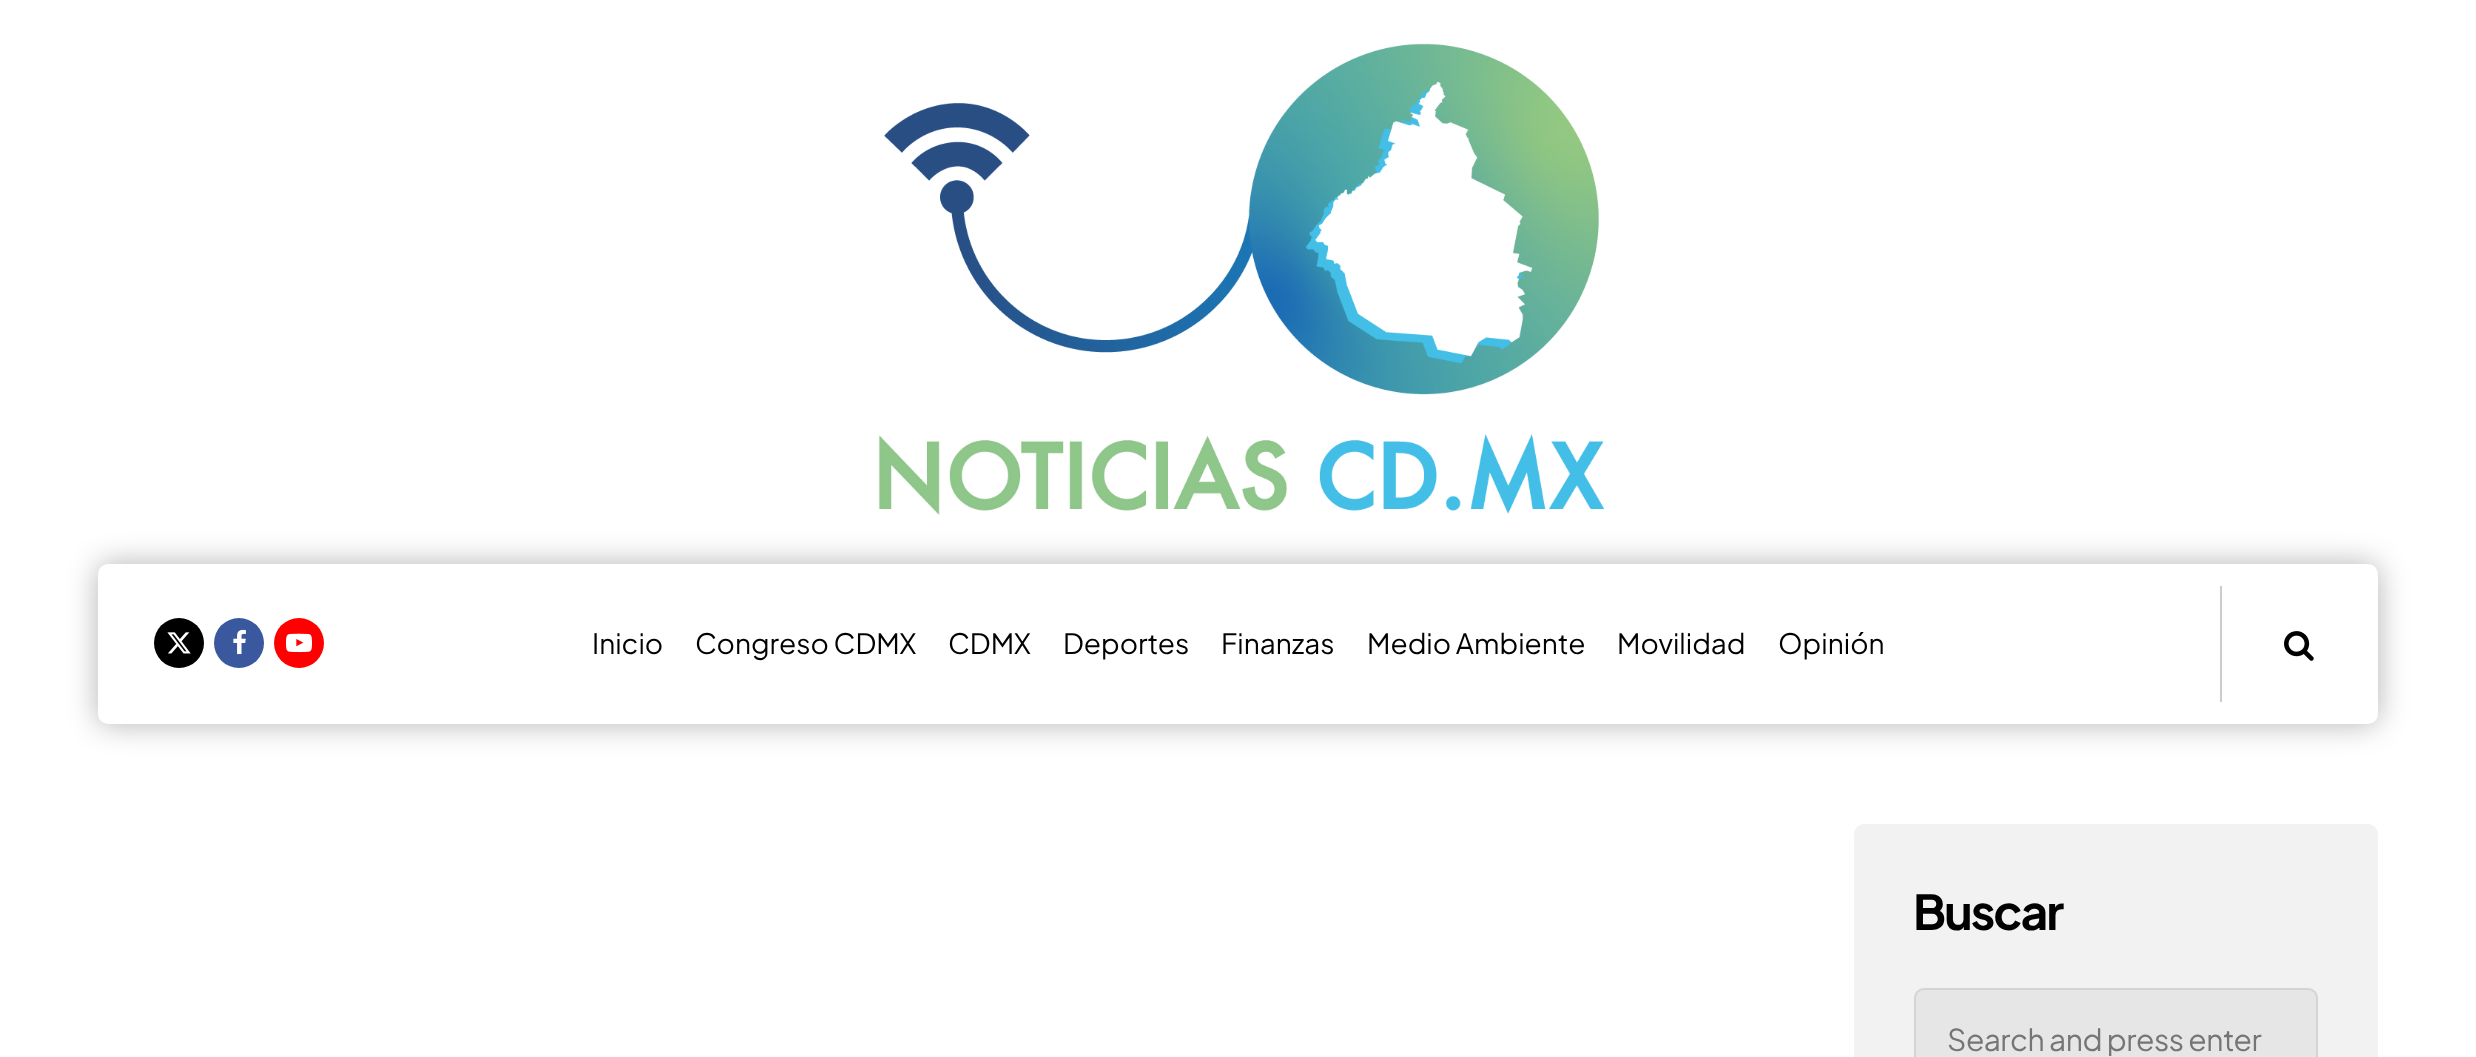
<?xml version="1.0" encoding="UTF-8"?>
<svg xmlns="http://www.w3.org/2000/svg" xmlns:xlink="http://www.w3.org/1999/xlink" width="2476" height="1057">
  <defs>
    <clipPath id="clip1"><rect x="1948" y="1018" width="336" height="38" /></clipPath>
  </defs>
  <rect width="100%" height="100%" fill="#ffffff" />
  <image x="878" y="43" width="727" height="472" xlink:href="image1.png" />
  <rect x="98" y="564" width="2280" height="160" rx="10" fill="#000000" fill-opacity="0.3" filter="blur(15px)" />
  <rect x="98" y="564" width="2280" height="160" rx="10" fill="#ffffff" />
  <circle cx="179" cy="643" r="25" fill="#000000" />
  <image x="167" y="632" width="24" height="22" xlink:href="image2.png" />
  <circle cx="239" cy="643" r="25" fill="#3a589e" />
  <image x="233" y="629" width="13" height="26" xlink:href="image3.png" />
  <circle cx="299" cy="643" r="25" fill="#ff0000" />
  <image x="286" y="633" width="26" height="20" xlink:href="image4.png" />
  <rect x="2220" y="586" width="2" height="116" fill="#cccccc" />
  <image x="2284" y="631" width="30" height="30" xlink:href="image5.png" />
  <rect x="1854" y="824" width="524" height="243" rx="10" fill="#f2f2f2" />
  <rect x="1914" y="988" width="404" height="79" rx="10" fill="#e6e6e6" />
  <rect x="1915" y="989" width="402" height="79" rx="9" fill="none" stroke="#000000" stroke-opacity="0.08" stroke-width="2" />
  <text x="592" y="654" style="font-family: Plus Jakarta Sans; font-size: 28px; fill: #000000">Inicio</text>
  <text x="695" y="654" style="font-family: Plus Jakarta Sans; font-size: 28px; fill: #000000">Congreso CDMX</text>
  <text x="948" y="654" style="font-family: Plus Jakarta Sans; font-size: 28px; fill: #000000">CDMX</text>
  <text x="1063" y="654" style="font-family: Plus Jakarta Sans; font-size: 28px; fill: #000000">Deportes</text>
  <text x="1221" y="654" style="font-family: Plus Jakarta Sans; font-size: 28px; fill: #000000">Finanzas</text>
  <text x="1367" y="654" style="font-family: Plus Jakarta Sans; font-size: 28px; fill: #000000">Medio Ambiente</text>
  <text x="1617" y="654" style="font-family: Plus Jakarta Sans; font-size: 28px; fill: #000000">Movilidad</text>
  <text x="1778" y="654" style="font-family: Plus Jakarta Sans; font-size: 28px; fill: #000000">Opinión</text>
  <text x="1913" y="930" style="font-family: Plus Jakarta Sans; font-size: 48px; font-weight: bold; letter-spacing: -2px; fill: #000000">Buscar</text>
  <g clip-path="url(#clip1)">
    <text x="1947" y="1051" style="font-family: Plus Jakarta Sans; font-size: 30px; letter-spacing: -0.45px; fill: #757575">Search and press enter</text>
  </g>
</svg>
